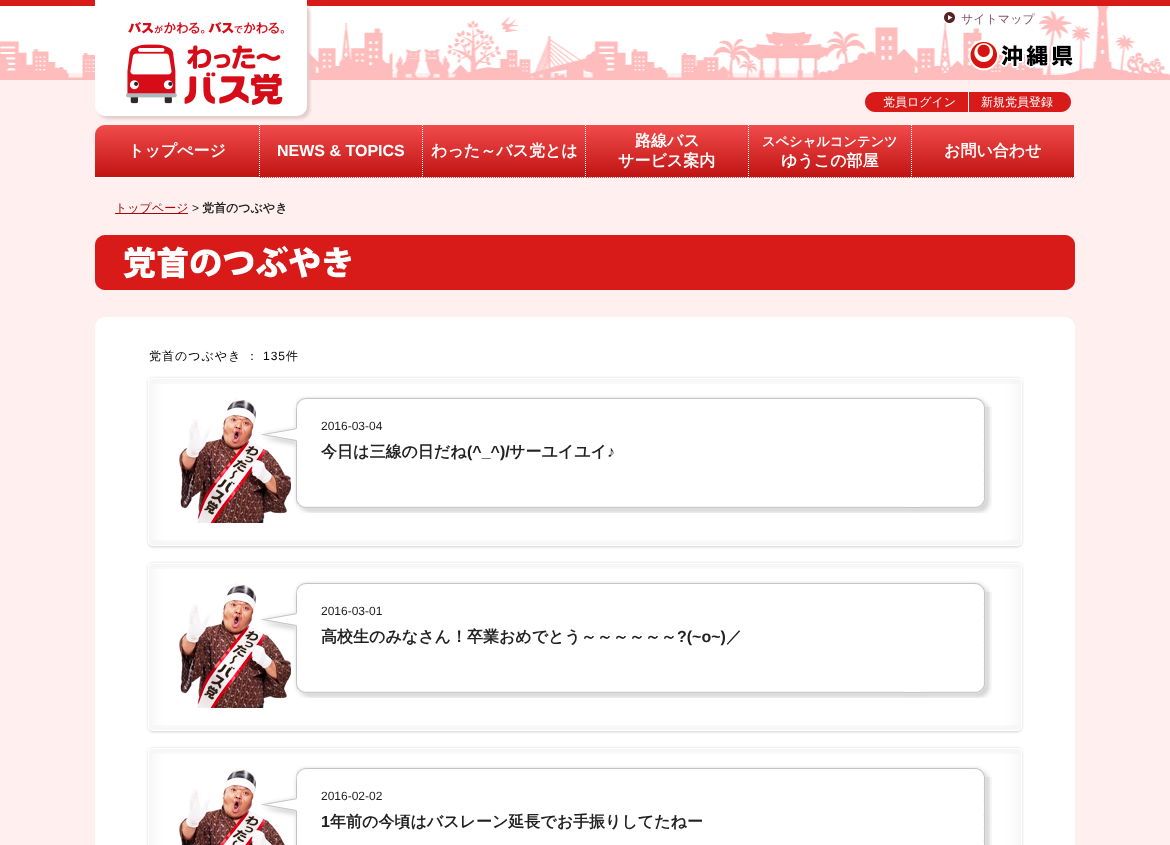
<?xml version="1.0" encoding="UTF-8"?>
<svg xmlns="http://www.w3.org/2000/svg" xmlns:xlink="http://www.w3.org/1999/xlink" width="1170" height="845">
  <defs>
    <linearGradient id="g1" gradientUnits="userSpaceOnUse" x1="177" y1="125" x2="177" y2="177"><stop offset="0" stop-color="#f14b4b" /><stop offset="1" stop-color="#c01413" /></linearGradient>
    <linearGradient id="g2" gradientUnits="userSpaceOnUse" x1="341" y1="125" x2="341" y2="177"><stop offset="0" stop-color="#f14b4b" /><stop offset="1" stop-color="#c01413" /></linearGradient>
    <linearGradient id="g3" gradientUnits="userSpaceOnUse" x1="341" y1="177" x2="341" y2="229"><stop offset="0" stop-color="#f14b4b" /><stop offset="1" stop-color="#c01413" /></linearGradient>
    <linearGradient id="g4" gradientUnits="userSpaceOnUse" x1="504" y1="125" x2="504" y2="177"><stop offset="0" stop-color="#f14b4b" /><stop offset="1" stop-color="#c01413" /></linearGradient>
    <linearGradient id="g5" gradientUnits="userSpaceOnUse" x1="504" y1="177" x2="504" y2="229"><stop offset="0" stop-color="#f14b4b" /><stop offset="1" stop-color="#c01413" /></linearGradient>
    <linearGradient id="g6" gradientUnits="userSpaceOnUse" x1="667" y1="125" x2="667" y2="177"><stop offset="0" stop-color="#f14b4b" /><stop offset="1" stop-color="#c01413" /></linearGradient>
    <linearGradient id="g7" gradientUnits="userSpaceOnUse" x1="667" y1="177" x2="667" y2="229"><stop offset="0" stop-color="#f14b4b" /><stop offset="1" stop-color="#c01413" /></linearGradient>
    <linearGradient id="g8" gradientUnits="userSpaceOnUse" x1="830" y1="125" x2="830" y2="177"><stop offset="0" stop-color="#f14b4b" /><stop offset="1" stop-color="#c01413" /></linearGradient>
    <linearGradient id="g9" gradientUnits="userSpaceOnUse" x1="830" y1="177" x2="830" y2="229"><stop offset="0" stop-color="#f14b4b" /><stop offset="1" stop-color="#c01413" /></linearGradient>
    <linearGradient id="g10" gradientUnits="userSpaceOnUse" x1="993" y1="125" x2="993" y2="177"><stop offset="0" stop-color="#f14b4b" /><stop offset="1" stop-color="#c01413" /></linearGradient>
    <linearGradient id="g11" gradientUnits="userSpaceOnUse" x1="993" y1="177" x2="993" y2="229"><stop offset="0" stop-color="#f14b4b" /><stop offset="1" stop-color="#c01413" /></linearGradient>
  </defs>
  <rect width="100%" height="100%" fill="#ffefef" />
  <image x="0" y="0" width="1170" height="80" xlink:href="image1.png" />
  <rect x="98" y="3" width="212" height="116" rx="10" fill="#e3cccc" filter="blur(1.5px)" />
  <image x="95" y="0" width="212" height="116" xlink:href="image2.png" />
  <image x="944" y="12" width="11" height="11" xlink:href="image3.png" />
  <image x="968" y="40" width="105" height="31" xlink:href="image4.png" />
  <path d="M 875 92 h 94 v 20 h -94 c -5.5 0 -10 -4.5 -10 -10 c 0 -5.5 4.5 -10 10 -10 z" fill="#d81b19" />
  <rect x="968" y="92" width="1" height="20" fill="#ffffff" />
  <path d="M 969 92 h 92 c 5.5 0 10 4.5 10 10 c 0 5.5 -4.5 10 -10 10 h -92 z" fill="#d81b19" />
  <path d="M 105 125 h 154 v 52 h -164 v -42 c 0 -5.5 4.5 -10 10 -10 z" fill="url(#g1)" />
  <rect x="95" y="177" width="164" height="1" fill="#ffffff" />
  <rect x="259" y="125" width="163" height="52" fill="url(#g2)" />
  <rect x="259" y="177" width="163" height="1" fill="url(#g3)" />
  <path d="M 259 177.5 h 163" fill="none" stroke="#ffffff" stroke-dasharray="1 1" />
  <path d="M 259.5 125 v 53" fill="none" stroke="#ffffff" stroke-dasharray="1 1" />
  <rect x="422" y="125" width="163" height="52" fill="url(#g4)" />
  <rect x="422" y="177" width="163" height="1" fill="url(#g5)" />
  <path d="M 422 177.5 h 163" fill="none" stroke="#ffffff" stroke-dasharray="1 1" />
  <path d="M 422.5 125 v 53" fill="none" stroke="#ffffff" stroke-dasharray="1 1" />
  <rect x="585" y="125" width="163" height="52" fill="url(#g6)" />
  <rect x="585" y="177" width="163" height="1" fill="url(#g7)" />
  <path d="M 585 177.5 h 163" fill="none" stroke="#ffffff" stroke-dasharray="1 1" />
  <path d="M 585.5 125 v 53" fill="none" stroke="#ffffff" stroke-dasharray="1 1" />
  <rect x="748" y="125" width="163" height="52" fill="url(#g8)" />
  <rect x="748" y="177" width="163" height="1" fill="url(#g9)" />
  <path d="M 748 177.5 h 163" fill="none" stroke="#ffffff" stroke-dasharray="1 1" />
  <path d="M 748.5 125 v 53" fill="none" stroke="#ffffff" stroke-dasharray="1 1" />
  <rect x="911" y="125" width="163" height="52" fill="url(#g10)" />
  <rect x="911" y="177" width="163" height="1" fill="url(#g11)" />
  <path d="M 911 177.5 h 163" fill="none" stroke="#ffffff" stroke-dasharray="1 1" />
  <path d="M 911.5 125 v 53" fill="none" stroke="#ffffff" stroke-dasharray="1 1" />
  <rect x="115" y="213" width="73" height="1" fill="#a60808" />
  <image x="95" y="235" width="980" height="55" xlink:href="image5.png" />
  <rect x="95" y="317" width="980" height="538" rx="10" fill="#ffffff" />
  <image x="146" y="376" width="878" height="8" xlink:href="image6.png" />
  <image x="146" y="384" width="878" height="156" xlink:href="image7.png" />
  <image x="296" y="396" width="695" height="11" xlink:href="image9.png" />
  <image x="296" y="407" width="696" height="93" xlink:href="image10.png" />
  <image x="296" y="500" width="696" height="13" xlink:href="image11.png" />
  <image x="179" y="397" width="118" height="126" xlink:href="image8.png" />
  <image x="146" y="540" width="878" height="9" xlink:href="image12.png" />
  <image x="146" y="561" width="878" height="8" xlink:href="image6.png" />
  <image x="146" y="569" width="878" height="156" xlink:href="image7.png" />
  <image x="296" y="581" width="695" height="11" xlink:href="image9.png" />
  <image x="296" y="592" width="696" height="93" xlink:href="image10.png" />
  <image x="296" y="685" width="696" height="13" xlink:href="image11.png" />
  <image x="179" y="582" width="118" height="126" xlink:href="image8.png" />
  <image x="146" y="725" width="878" height="9" xlink:href="image12.png" />
  <image x="146" y="746" width="878" height="8" xlink:href="image6.png" />
  <image x="146" y="754" width="878" height="91" xlink:href="image13.png" />
  <image x="296" y="766" width="695" height="11" xlink:href="image9.png" />
  <image x="296" y="777" width="696" height="68" xlink:href="image15.png" />
  <image x="179" y="767" width="118" height="78" xlink:href="image14.png" />
  <text x="961" y="23" style="font-family: WenQuanYi Zen Hei; font-size: 12px; font-weight: 500; fill: #7f5562">サイトマップ</text>
  <text x="883" y="106" style="font-family: WenQuanYi Zen Hei; font-size: 12px; font-weight: 500; fill: #ffffff">党員ログイン</text>
  <text x="981" y="106" style="font-family: WenQuanYi Zen Hei; font-size: 12px; font-weight: 500; fill: #ffffff">新規党員登録</text>
  <text x="128" y="156" style="font-family: WenQuanYi Zen Hei; font-size: 16px; font-weight: bold; fill: #ffffff">トップぺージ</text>
  <text x="277" y="156" style="font-family: Liberation Sans; font-size: 16px; font-weight: bold; fill: #ffffff">NEWS &amp; TOPICS</text>
  <text x="431" y="156" style="font-family: WenQuanYi Zen Hei; font-size: 16px; font-weight: bold; fill: #ffffff">わった～バス党とは</text>
  <text x="635" y="146" style="font-family: WenQuanYi Zen Hei; font-size: 16px; font-weight: bold; fill: #ffffff">路線バス</text>
  <text x="618" y="166" style="font-family: WenQuanYi Zen Hei; font-size: 16px; font-weight: bold; fill: #ffffff">サービス案内</text>
  <text x="762" y="146" style="font-family: WenQuanYi Zen Hei; font-size: 13.25px; font-weight: bold; fill: #ffffff">スペシャルコンテンツ</text>
  <text x="781" y="166" style="font-family: WenQuanYi Zen Hei; font-size: 16px; font-weight: bold; fill: #ffffff">ゆうこの部屋</text>
  <text x="944" y="156" style="font-family: WenQuanYi Zen Hei; font-size: 16px; font-weight: bold; fill: #ffffff">お問い合わせ</text>
  <text x="115" y="212" style="font-family: WenQuanYi Zen Hei; font-size: 12px; font-weight: 500; fill: #a60808">トップページ</text>
  <text x="192" y="212" style="font-family: Liberation Sans; font-size: 12px; fill: #212121">&gt;</text>
  <text x="202" y="212" style="font-family: WenQuanYi Zen Hei; font-size: 12px; font-weight: bold; fill: #212121">党首のつぶやき</text>
  <text x="149" y="360" style="font-family: WenQuanYi Zen Hei; font-size: 12px; font-weight: 500; letter-spacing: 1px; fill: #000000">党首のつぶやき ：</text>
  <text x="263" y="360" style="font-family: Liberation Sans; font-size: 12px; letter-spacing: 1px; fill: #000000">135</text>
  <text x="286" y="360" style="font-family: WenQuanYi Zen Hei; font-size: 12px; font-weight: 500; letter-spacing: 1px; fill: #000000">件</text>
  <text x="321" y="430" style="font-family: Liberation Sans; font-size: 12px; fill: #212121">2016-03-04</text>
  <text x="321" y="457" style="font-family: WenQuanYi Zen Hei; font-size: 16px; font-weight: bold; fill: #212121">今日は三線の日だね</text>
  <text x="467" y="457" style="font-family: Liberation Sans; font-size: 16px; font-weight: bold; fill: #212121">(^_^)/</text>
  <text x="509" y="457" style="font-family: WenQuanYi Zen Hei; font-size: 16px; font-weight: bold; fill: #212121">サーユイユイ</text>
  <text x="607" y="457" style="font-family: Liberation Sans; font-size: 16px; font-weight: bold; fill: #212121">♪</text>
  <text x="321" y="615" style="font-family: Liberation Sans; font-size: 12px; fill: #212121">2016-03-01</text>
  <text x="321" y="642" style="font-family: WenQuanYi Zen Hei; font-size: 16px; font-weight: bold; fill: #212121">高校生のみなさん！卒業おめでとう～～～～～～</text>
  <text x="677" y="642" style="font-family: Liberation Sans; font-size: 16px; font-weight: bold; fill: #212121">?(~o~)</text>
  <text x="726" y="642" style="font-family: WenQuanYi Zen Hei; font-size: 16px; font-weight: bold; fill: #212121">／</text>
  <text x="321" y="800" style="font-family: Liberation Sans; font-size: 12px; fill: #212121">2016-02-02</text>
  <text x="321" y="827" style="font-family: Liberation Sans; font-size: 16px; font-weight: bold; fill: #212121">1</text>
  <text x="330" y="827" style="font-family: WenQuanYi Zen Hei; font-size: 16px; font-weight: bold; fill: #212121">年前の今頃はバスレーン延長でお手振りしてたねー</text>
</svg>
